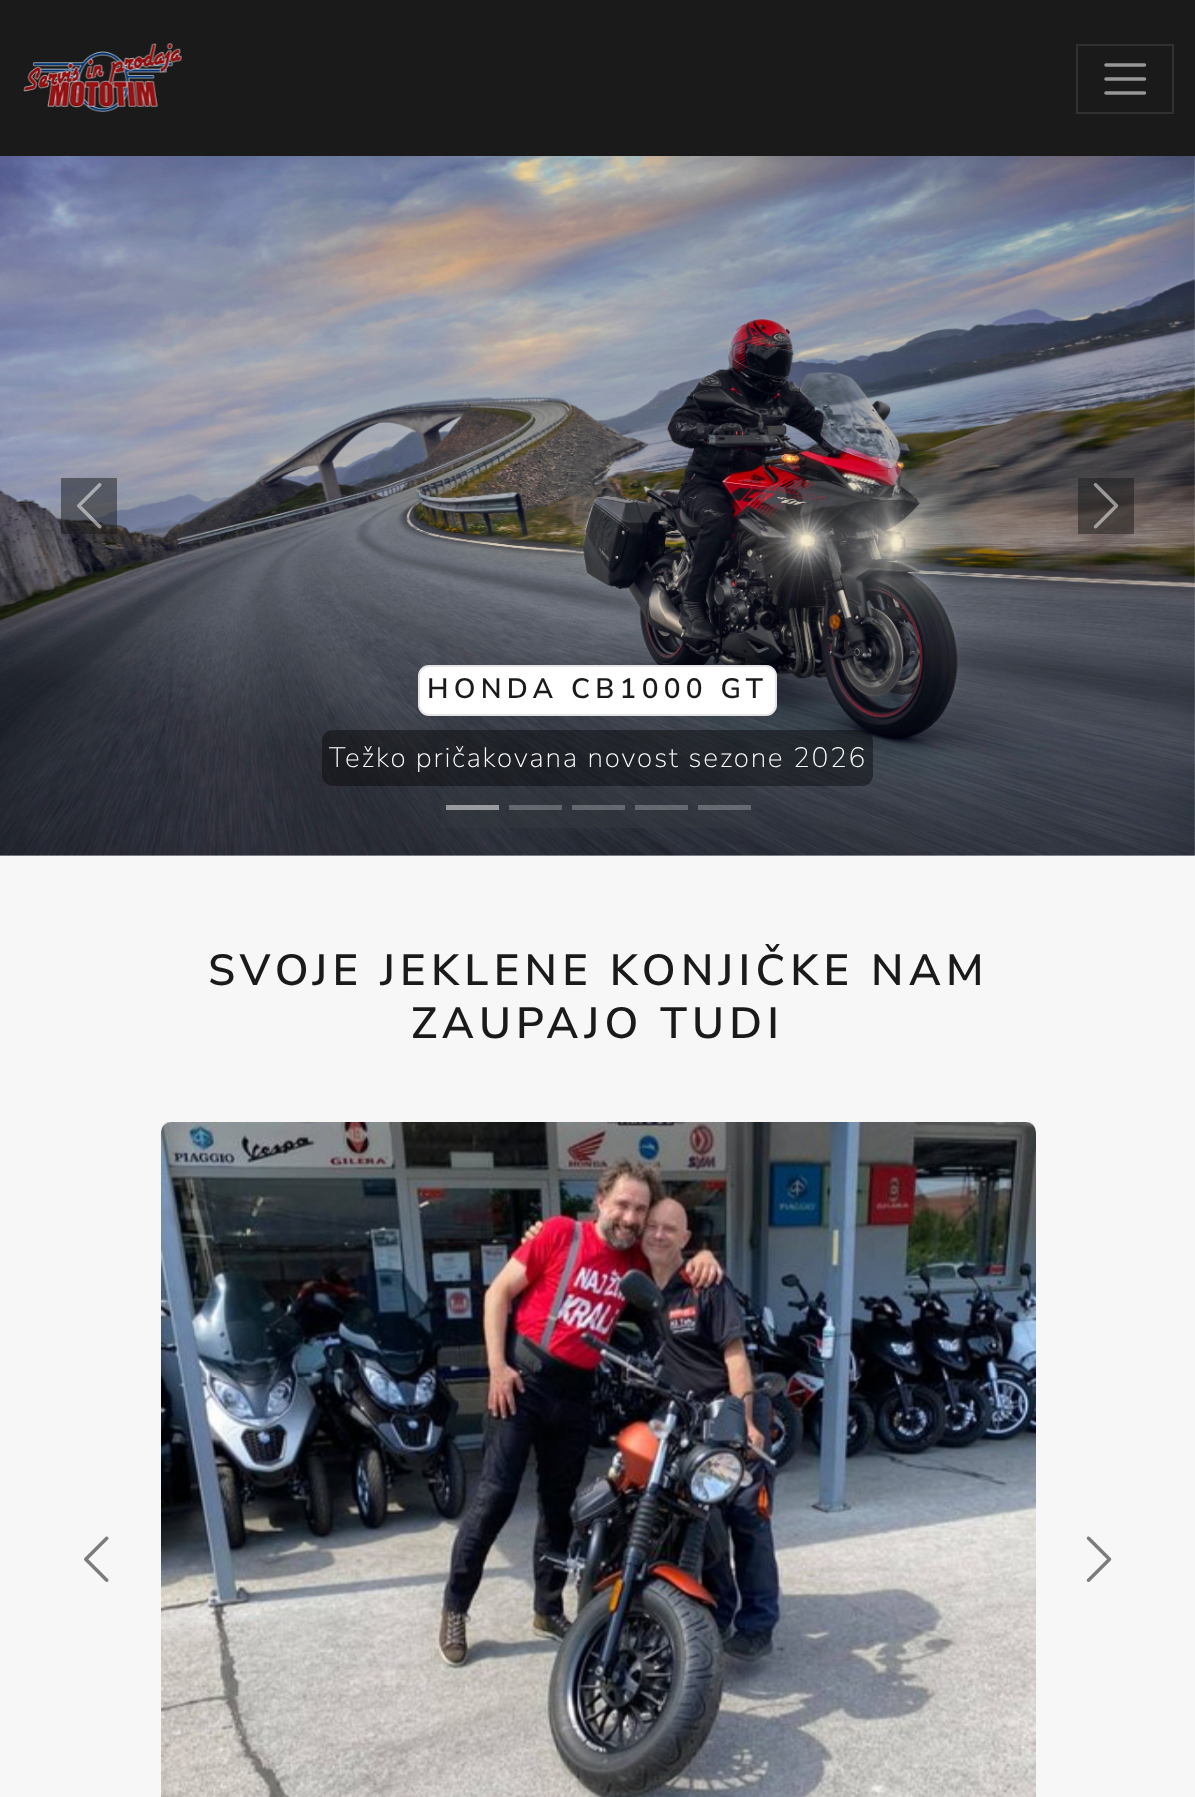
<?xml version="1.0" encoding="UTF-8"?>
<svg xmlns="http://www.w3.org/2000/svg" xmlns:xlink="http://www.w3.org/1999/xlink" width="1195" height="1797">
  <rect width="100%" height="100%" fill="#ffffff" />
  <rect width="1195" height="156" fill="#1a1a1a" />
  <image x="23" y="43" width="159" height="69" xlink:href="image1.png" />
  <rect x="1077" y="45" width="96" height="68" fill="none" stroke="#313131" stroke-width="2" />
  <path d="M 1106 65 h 38.5 m -38.5 14 h 38.5 m -38.5 14 h 38.5" fill="none" stroke="#989898" stroke-width="3.5" stroke-linecap="round" />
  <image x="0" y="156" width="1195" height="700" xlink:href="image4.png" />
  <rect x="61" y="478" width="56" height="56" fill="#1a1a1a" fill-opacity="0.5" />
  <image x="77" y="483" width="25" height="46" xlink:href="image2.png" />
  <rect x="1078" y="478" width="56" height="56" fill="#1a1a1a" fill-opacity="0.5" />
  <image x="1093" y="483" width="26" height="46" xlink:href="image3.png" />
  <rect x="418" y="665" width="359" height="51" rx="11" fill="#ffffff" />
  <rect x="419" y="666" width="357" height="49" rx="10" fill="none" stroke="#000000" stroke-opacity="0.1" stroke-width="2" />
  <rect x="322" y="730" width="551" height="56" rx="11" fill="#000000" fill-opacity="0.4" />
  <rect x="441" y="788" width="315" height="40" fill="#343a40" fill-opacity="0.5" />
  <rect x="446" y="805" width="53" height="5" fill="#ffffff" fill-opacity="0.5" />
  <rect x="509" y="805" width="53" height="5" fill="#ffffff" fill-opacity="0.25" />
  <rect x="572" y="805" width="53" height="5" fill="#ffffff" fill-opacity="0.25" />
  <rect x="635" y="805" width="53" height="5" fill="#ffffff" fill-opacity="0.25" />
  <rect x="698" y="805" width="53" height="5" fill="#ffffff" fill-opacity="0.25" />
  <rect y="856" width="1195" height="941" fill="#f7f7f7" />
  <image x="84" y="1536" width="25" height="46" xlink:href="image5.png" />
  <image x="161" y="1122" width="875" height="675" xlink:href="image6.png" />
  <image x="1086" y="1536" width="26" height="46" xlink:href="image7.png" />
  <text x="427" y="698" style="font-family: Nunito Sans; font-size: 28px; font-weight: 600; letter-spacing: 5.25px; fill: #1a1a1a">HONDA CB1000 GT</text>
  <text x="329" y="767" style="font-family: Nunito Sans; font-size: 28px; font-weight: 200; letter-spacing: 1.75px; fill: #ffffff">Težko pričakovana novost sezone 2026</text>
  <text x="208" y="985" style="font-family: Nunito Sans; font-size: 43.6px; font-weight: 600; letter-spacing: 5.25px; fill: #1a1a1a">SVOJE JEKLENE KONJIČKE NAM</text>
  <text x="411" y="1038" style="font-family: Nunito Sans; font-size: 43.6px; font-weight: 600; letter-spacing: 5.25px; fill: #1a1a1a">ZAUPAJO TUDI</text>
</svg>
